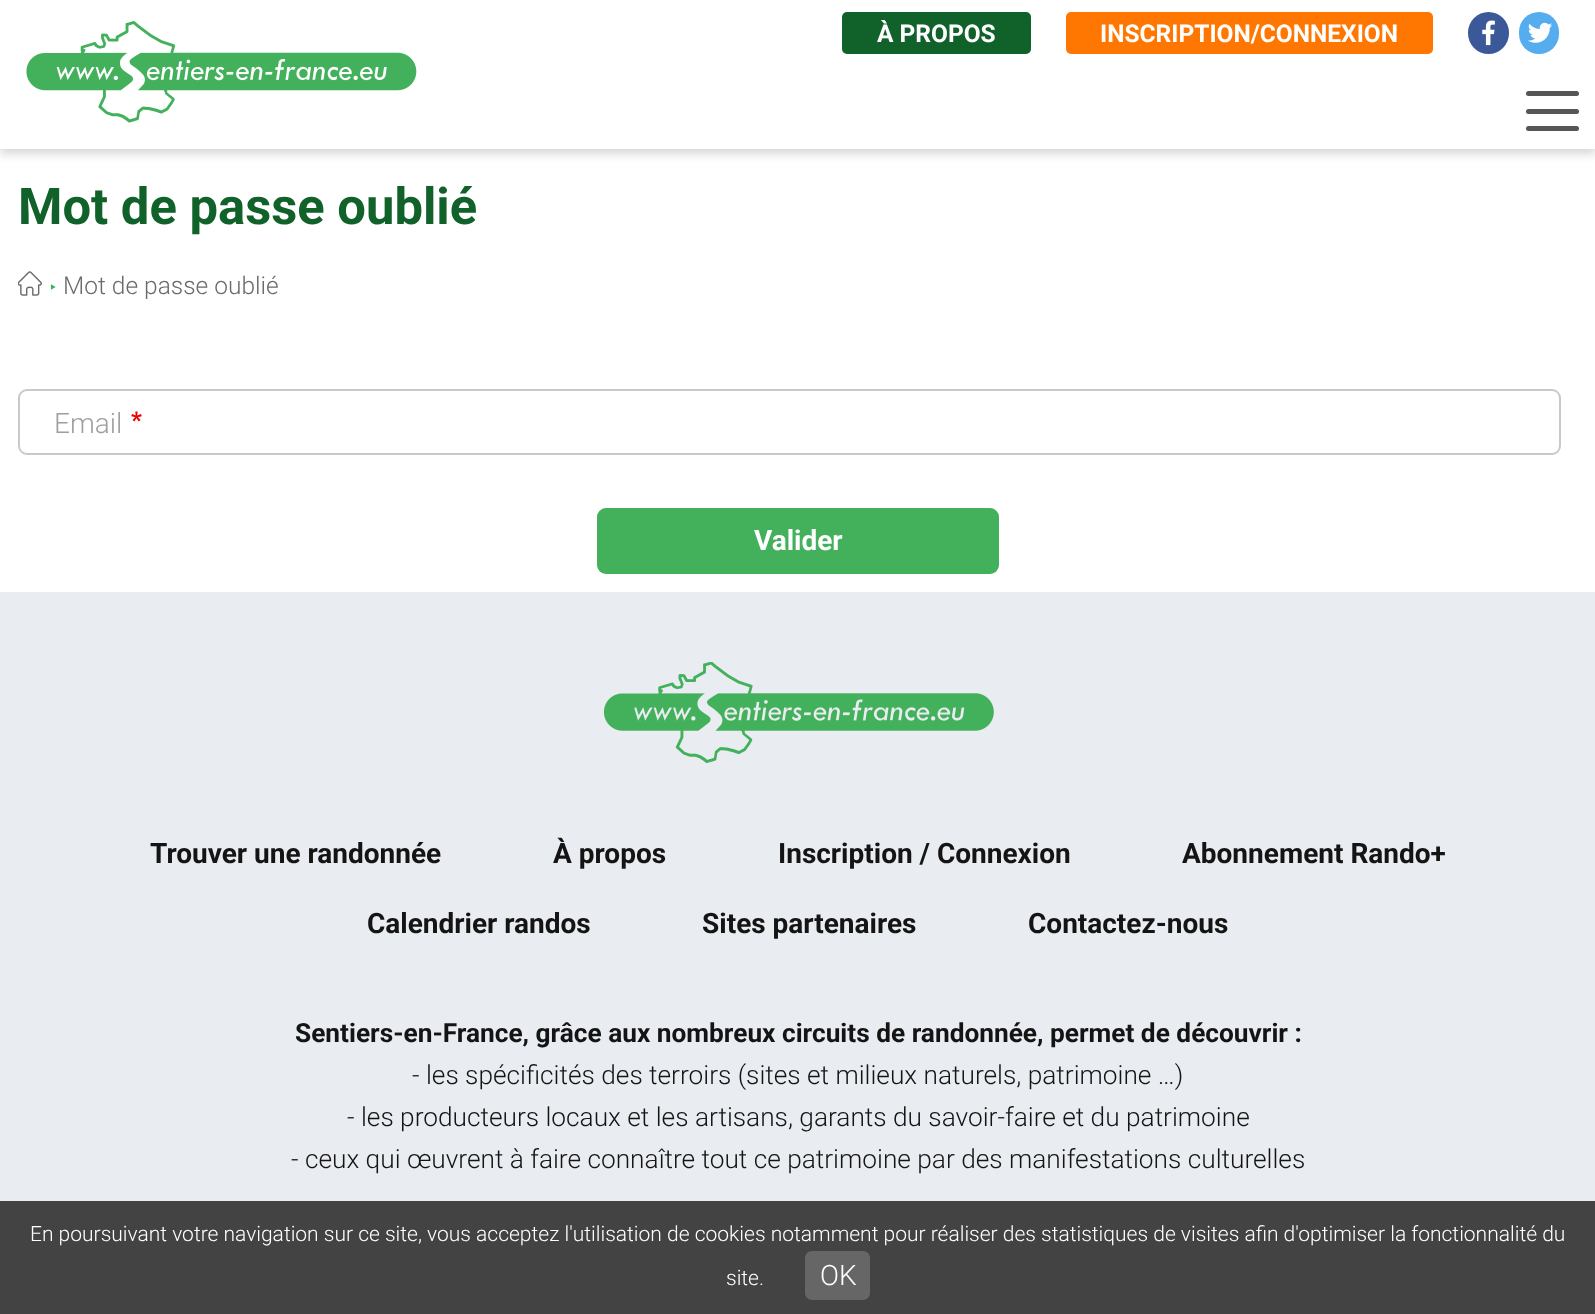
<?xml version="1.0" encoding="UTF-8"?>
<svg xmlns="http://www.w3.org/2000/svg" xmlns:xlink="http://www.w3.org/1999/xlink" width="1595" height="1314">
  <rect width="100%" height="100%" fill="#ffffff" />
  <rect y="5" width="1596" height="149" fill="#000000" fill-opacity="0.16" filter="blur(5px)" />
  <rect width="1595" height="149" fill="#ffffff" />
  <image x="26" y="21" width="391" height="102" xlink:href="image1.png" />
  <rect x="842" y="12" width="189" height="42" rx="5" fill="#11612b" />
  <rect x="1066" y="12" width="367" height="42" rx="5" fill="#ff7700" />
  <rect x="1468" y="12" width="41" height="42" rx="20.5" fill="#3b5998" />
  <image x="1482" y="20" width="13" height="26" xlink:href="image2.png" />
  <rect x="1519" y="12" width="40" height="42" rx="20" fill="#55acee" />
  <image x="1528" y="22" width="25" height="21" xlink:href="image3.png" />
  <rect x="1526" y="91" width="53" height="5" rx="2.5" fill="#565656" />
  <rect x="1526" y="126" width="53" height="5" rx="2.5" fill="#565656" />
  <rect x="1526" y="109" width="53" height="5" rx="2.5" fill="#565656" />
  <image x="18" y="271" width="24" height="25" xlink:href="image4.png" />
  <rect x="19" y="390" width="1541" height="64" rx="8" fill="none" stroke="#c9c9c9" stroke-width="2" />
  <image x="131" y="411" width="11" height="11" xlink:href="image5.png" />
  <rect x="597" y="508" width="402" height="66" rx="9" fill="#43b05b" />
  <rect y="592" width="1595" height="609" fill="#e9ecf0" />
  <image x="604" y="662" width="390" height="101" xlink:href="image6.png" />
  <rect y="1201" width="1595" height="113" fill="#434343" />
  <rect x="805" y="1251" width="65" height="49" rx="7" fill="#666666" />
  <text x="877" y="42" style="font-family: Roboto; font-size: 24.5px; font-weight: bold; fill: #ffffff">À PROPOS</text>
  <text x="1100" y="42" style="font-family: Roboto; font-size: 24.5px; font-weight: bold; fill: #ffffff">INSCRIPTION/CONNEXION</text>
  <text x="18" y="224" style="font-family: Roboto; font-size: 50.75px; font-weight: bold; fill: #11612b">Mot de passe oublié</text>
  <text x="49" y="291" style="font-family: FreeSans; font-size: 10px; fill: #43b05b">⯈</text>
  <text x="63" y="294" style="font-family: Roboto; font-size: 24.5px; font-weight: 300; fill: #6a6a6a">Mot de passe oublié</text>
  <text x="54" y="433" style="font-family: Roboto; font-size: 28px; font-weight: 300; fill: #9f9f9f">Email</text>
  <text x="754" y="550" style="font-family: Roboto; font-size: 28px; font-weight: bold; fill: #ffffff">Valider</text>
  <text x="150" y="863" style="font-family: Roboto; font-size: 28px; font-weight: bold; fill: #141414">Trouver une randonnée</text>
  <text x="553" y="863" style="font-family: Roboto; font-size: 28px; font-weight: bold; fill: #141414">À propos</text>
  <text x="778" y="863" style="font-family: Roboto; font-size: 28px; font-weight: bold; fill: #141414">Inscription / Connexion</text>
  <text x="1182" y="863" style="font-family: Roboto; font-size: 28px; font-weight: bold; fill: #141414">Abonnement Rando+</text>
  <text x="367" y="933" style="font-family: Roboto; font-size: 28px; font-weight: bold; fill: #141414">Calendrier randos</text>
  <text x="702" y="933" style="font-family: Roboto; font-size: 28px; font-weight: bold; fill: #141414">Sites partenaires</text>
  <text x="1028" y="933" style="font-family: Roboto; font-size: 28px; font-weight: bold; fill: #141414">Contactez-nous</text>
  <text x="295" y="1042" style="font-family: Roboto; font-size: 26.25px; font-weight: bold; fill: #141414">Sentiers-en-France, grâce aux nombreux circuits de randonnée, permet de découvrir :</text>
  <text x="412" y="1084" style="font-family: Roboto; font-size: 26.25px; font-weight: 300; fill: #141414">- les spécificités des terroirs (sites et milieux naturels, patrimoine …)</text>
  <text x="347" y="1126" style="font-family: Roboto; font-size: 26.25px; font-weight: 300; fill: #141414">- les producteurs locaux et les artisans, garants du savoir-faire et du patrimoine</text>
  <text x="291" y="1168" style="font-family: Roboto; font-size: 26.25px; font-weight: 300; fill: #141414">- ceux qui œuvrent à faire connaître tout ce patrimoine par des manifestations culturelles</text>
  <text x="30" y="1241" style="font-family: Roboto; font-size: 21px; font-weight: 300; fill: #ffffff">En poursuivant votre navigation sur ce site, vous acceptez l'utilisation de cookies notamment pour réaliser des statistiques de visites afin d'optimiser la fonctionnalité du</text>
  <text x="726" y="1285" style="font-family: Roboto; font-size: 21px; font-weight: 300; fill: #ffffff">site.</text>
  <text x="820" y="1285" style="font-family: Roboto; font-size: 28px; font-weight: 300; fill: #ffffff">OK</text>
</svg>
